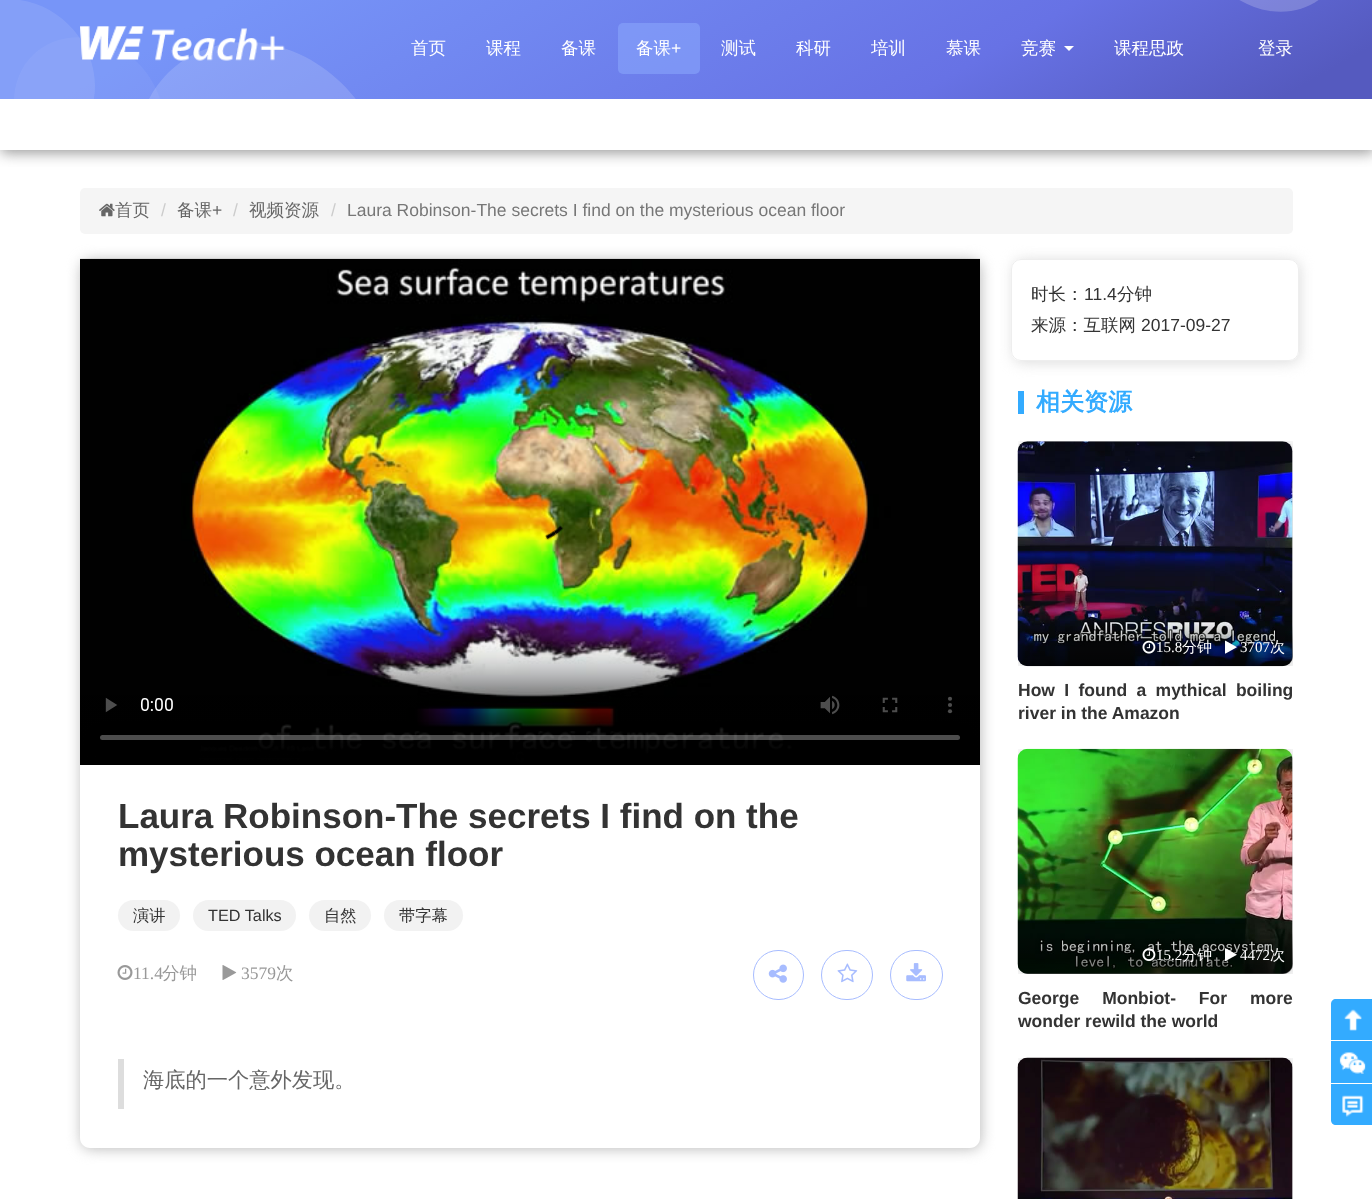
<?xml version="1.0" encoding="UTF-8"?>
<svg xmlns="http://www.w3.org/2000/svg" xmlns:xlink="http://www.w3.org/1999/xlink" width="1372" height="1199">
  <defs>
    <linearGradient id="g1" gradientUnits="userSpaceOnUse" x1="493" y1="-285" x2="879" y2="384"><stop offset="0.15" stop-color="#7795f8" /><stop offset="0.7" stop-color="#6772e5" /><stop offset="0.94" stop-color="#555abf" /></linearGradient>
    <clipPath id="clip1"><rect x="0" y="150" width="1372" height="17" /></clipPath>
    <clipPath id="clip2"><path d="M 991 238 h 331 v 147 h -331 z m 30 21 h 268 c 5.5 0 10 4.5 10 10 v 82 c 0 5.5 -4.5 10 -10 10 h -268 c -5.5 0 -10 -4.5 -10 -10 v -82 c 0 -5.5 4.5 -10 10 -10 z" clip-rule="evenodd" /></clipPath>
    <clipPath id="clip3"><path d="M 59 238 h 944 v 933 h -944 z m 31 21 h 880 c 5.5 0 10 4.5 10 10 v 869 c 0 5.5 -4.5 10 -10 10 h -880 c -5.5 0 -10 -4.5 -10 -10 v -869 c 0 -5.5 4.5 -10 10 -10 z" clip-rule="evenodd" /></clipPath>
    <clipPath id="clip4"><rect x="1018" y="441" width="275" height="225" /></clipPath>
    <linearGradient id="g2" gradientUnits="userSpaceOnUse" x1="1155" y1="624" x2="1155" y2="666"><stop offset="0" stop-color="#000000" stop-opacity="0" /><stop offset="1" stop-color="#000000" stop-opacity="0.6" /></linearGradient>
    <clipPath id="clip5"><rect x="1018" y="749" width="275" height="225" /></clipPath>
    <linearGradient id="g3" gradientUnits="userSpaceOnUse" x1="1155" y1="931" x2="1155" y2="974"><stop offset="0" stop-color="#000000" stop-opacity="0" /><stop offset="1" stop-color="#000000" stop-opacity="0.6" /></linearGradient>
    <clipPath id="clip6"><rect x="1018" y="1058" width="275" height="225" /></clipPath>
  </defs>
  <rect width="100%" height="100%" fill="#ffffff" />
  <rect width="1372" height="99" fill="url(#g1)" />
  <path d="M 20 0 c 42 6 75 44 75 86 c 0 41 -33 70 -75 64 c -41 -6 -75 -44 -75 -86 c 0 -41 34 -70 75 -64 z" fill="#ffffff" fill-opacity="0.1" />
  <path d="M 1270 -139 c 41 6 75 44 75 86 c 0 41 -34 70 -75 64 c -41 -6 -75 -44 -75 -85 c 0 -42 34 -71 75 -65 z" fill="#ffffff" fill-opacity="0.2" />
  <path d="M 89 38 c 41 5 75 44 75 85 c 0 41 -34 70 -75 65 c -42 -6 -75 -45 -75 -86 c 0 -41 33 -70 75 -64 z" fill="#ffffff" fill-opacity="0.05" />
  <path d="M 262 43 c 69 10 125 74 125 143 c 0 69 -56 117 -125 107 c -69 -9 -125 -73 -125 -142 c 0 -69 56 -117 125 -108 z" fill="#ffffff" fill-opacity="0.15" />
  <g clip-path="url(#clip1)">
    <rect x="1" y="3" width="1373" height="150" fill="#999999" filter="blur(7px)" />
  </g>
  <image x="80" y="26" width="205" height="35" xlink:href="image1.png" />
  <rect x="618" y="23" width="82" height="51" rx="5" fill="#85a0f9" fill-opacity="0.7" />
  <path d="M 1064 46 h 10 l -5 5 z" fill="#ffffff" />
  <rect x="80" y="188" width="1213" height="46" rx="5" fill="#f5f5f5" />
  <image x="99" y="203" width="16" height="14" xlink:href="image2.png" />
  <g clip-path="url(#clip2)">
    <rect x="1013" y="260" width="287" height="103" rx="10" fill="#dddddd" filter="blur(7px)" />
  </g>
  <rect x="1011.5" y="259.5" width="287" height="101" rx="9.5" fill="none" stroke="#eeeeee" />
  <g clip-path="url(#clip3)">
    <rect x="81" y="260" width="900" height="889" rx="10" fill="#bbbbbb" filter="blur(7px)" />
  </g>
  <image x="80" y="258" width="900" height="507" xlink:href="image3.png" />
  <rect x="118" y="900" width="62" height="31" rx="15.5" fill="#f2f2f2" />
  <rect x="193" y="900" width="103" height="31" rx="15.5" fill="#f2f2f2" />
  <rect x="309" y="900" width="62" height="31" rx="15.5" fill="#f2f2f2" />
  <rect x="384" y="900" width="79" height="31" rx="15.5" fill="#f2f2f2" />
  <image x="117" y="965" width="16" height="15" xlink:href="image4.png" />
  <image x="222" y="965" width="15" height="15" xlink:href="image5.png" />
  <rect x="753.5" y="950.5" width="50" height="49" rx="24.5" fill="none" stroke="#a7bcff" />
  <image x="768" y="964" width="19" height="19" xlink:href="image6.png" />
  <rect x="821.5" y="950.5" width="51" height="49" rx="24.5" fill="none" stroke="#a7bcff" />
  <image x="837" y="963" width="21" height="20" xlink:href="image7.png" />
  <rect x="890.5" y="950.5" width="52" height="49" rx="24.5" fill="none" stroke="#a7bcff" />
  <image x="906" y="963" width="20" height="19" xlink:href="image8.png" />
  <rect x="118" y="1059" width="6" height="50" fill="#dddddd" />
  <rect x="1018" y="391" width="6" height="23" fill="#33abff" />
  <g clip-path="url(#clip4)">
    <rect x="1019" y="443" width="275" height="225" rx="10" fill="#cccccc" filter="blur(7px)" />
  </g>
  <image x="1017" y="441" width="276" height="226" xlink:href="image9.png" />
  <path d="M 1018 624 h 275 v 32 c 0 5.5 -4.5 10 -10 10 h -255 c -5.5 0 -10 -4.5 -10 -10 z" fill="url(#g2)" />
  <image x="1142" y="640" width="14" height="14" xlink:href="image10.png" />
  <image x="1225" y="640" width="12" height="14" xlink:href="image11.png" />
  <g clip-path="url(#clip5)">
    <rect x="1019" y="750" width="275" height="225" rx="10" fill="#cccccc" filter="blur(7px)" />
  </g>
  <image x="1017" y="748" width="276" height="226" xlink:href="image12.png" />
  <path d="M 1018 931 h 275 v 33 c 0 5.5 -4.5 10 -10 10 h -255 c -5.5 0 -10 -4.5 -10 -10 z" fill="url(#g3)" />
  <image x="1142" y="948" width="14" height="14" xlink:href="image13.png" />
  <image x="1225" y="948" width="12" height="14" xlink:href="image14.png" />
  <g clip-path="url(#clip6)">
    <rect x="1019" y="1059" width="275" height="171" rx="10" fill="#cccccc" filter="blur(7px)" />
  </g>
  <image x="1017" y="1057" width="276" height="142" xlink:href="image15.png" />
  <path d="M 1336 999 h 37 v 41 h -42 v -36 c 0 -3 2 -5 5 -5 z" fill="#33abff" />
  <image x="1344" y="1009" width="18" height="22" xlink:href="image16.png" />
  <rect x="1331" y="1041" width="41" height="42" fill="#33abff" />
  <image x="1339" y="1052" width="27" height="22" xlink:href="image17.png" />
  <path d="M 1331 1084 h 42 v 41 h -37 c -3 0 -5 -2 -5 -5 z" fill="#33abff" />
  <image x="1342" y="1095" width="22" height="22" xlink:href="image18.png" />
  <text x="411" y="54" style="font-family: WenQuanYi Zen Hei; font-size: 17.5px; font-weight: 500; fill: #ffffff">首页</text>
  <text x="486" y="54" style="font-family: WenQuanYi Zen Hei; font-size: 17.5px; font-weight: 500; fill: #ffffff">课程</text>
  <text x="561" y="54" style="font-family: WenQuanYi Zen Hei; font-size: 17.5px; font-weight: 500; fill: #ffffff">备课</text>
  <text x="636" y="54" style="font-family: WenQuanYi Zen Hei; font-size: 17.5px; font-weight: 500; fill: #ffffff">备课</text>
  <text x="671" y="54" style="font-family: Liberation Sans; font-size: 17.5px; fill: #ffffff">+</text>
  <text x="721" y="54" style="font-family: WenQuanYi Zen Hei; font-size: 17.5px; font-weight: 500; fill: #ffffff">测试</text>
  <text x="796" y="54" style="font-family: WenQuanYi Zen Hei; font-size: 17.5px; font-weight: 500; fill: #ffffff">科研</text>
  <text x="871" y="54" style="font-family: WenQuanYi Zen Hei; font-size: 17.5px; font-weight: 500; fill: #ffffff">培训</text>
  <text x="946" y="54" style="font-family: WenQuanYi Zen Hei; font-size: 17.5px; font-weight: 500; fill: #ffffff">慕课</text>
  <text x="1021" y="54" style="font-family: WenQuanYi Zen Hei; font-size: 17.5px; font-weight: 500; fill: #ffffff">竞赛</text>
  <text x="1114" y="54" style="font-family: WenQuanYi Zen Hei; font-size: 17.5px; font-weight: 500; fill: #ffffff">课程思政</text>
  <text x="1258" y="54" style="font-family: WenQuanYi Zen Hei; font-size: 17.5px; font-weight: 500; fill: #ffffff">登录</text>
  <text x="115" y="216" style="font-family: WenQuanYi Zen Hei; font-size: 17.5px; font-weight: 500; fill: #666666">首页</text>
  <text x="161" y="216" style="font-family: Liberation Sans; font-size: 17.5px; fill: #cccccc">/</text>
  <text x="177" y="216" style="font-family: WenQuanYi Zen Hei; font-size: 17.5px; font-weight: 500; fill: #666666">备课</text>
  <text x="212" y="216" style="font-family: Liberation Sans; font-size: 17.5px; fill: #666666">+</text>
  <text x="233" y="216" style="font-family: Liberation Sans; font-size: 17.5px; fill: #cccccc">/</text>
  <text x="249" y="216" style="font-family: WenQuanYi Zen Hei; font-size: 17.5px; font-weight: 500; fill: #666666">视频资源</text>
  <text x="331" y="216" style="font-family: Liberation Sans; font-size: 17.5px; fill: #cccccc">/</text>
  <text x="347" y="216" style="font-family: Liberation Sans; font-size: 17.5px; fill: #777777">Laura Robinson-The secrets I find on the mysterious ocean floor</text>
  <text x="1031" y="300" style="font-family: WenQuanYi Zen Hei; font-size: 17.5px; font-weight: 500; fill: #333333">时长：</text>
  <text x="1084" y="300" style="font-family: Liberation Sans; font-size: 17.5px; fill: #333333">11.4</text>
  <text x="1117" y="300" style="font-family: WenQuanYi Zen Hei; font-size: 17.5px; font-weight: 500; fill: #333333">分钟</text>
  <text x="1031" y="331" style="font-family: WenQuanYi Zen Hei; font-size: 17.5px; font-weight: 500; fill: #333333">来源：互联网</text>
  <text x="1141" y="331" style="font-family: Liberation Sans; font-size: 17.5px; fill: #333333">2017-09-27</text>
  <text x="118" y="828" style="font-family: Liberation Sans; font-size: 35px; font-weight: bold; fill: #333333">Laura Robinson-The secrets I find on the</text>
  <text x="118" y="866" style="font-family: Liberation Sans; font-size: 35px; font-weight: bold; fill: #333333">mysterious ocean floor</text>
  <text x="133" y="921" style="font-family: WenQuanYi Zen Hei; font-size: 16.25px; font-weight: 500; fill: #333333">演讲</text>
  <text x="208" y="921" style="font-family: Liberation Sans; font-size: 16.25px; fill: #333333">TED Talks</text>
  <text x="324" y="921" style="font-family: WenQuanYi Zen Hei; font-size: 16.25px; font-weight: 500; fill: #333333">自然</text>
  <text x="399" y="921" style="font-family: WenQuanYi Zen Hei; font-size: 16.25px; font-weight: 500; fill: #333333">带字幕</text>
  <text x="133" y="979" style="font-family: Liberation Serif; font-size: 17.5px; fill: #999999">11.4</text>
  <text x="162" y="979" style="font-family: WenQuanYi Zen Hei; font-size: 17.5px; font-weight: 500; fill: #999999">分钟</text>
  <text x="241" y="979" style="font-family: Liberation Serif; font-size: 17.5px; fill: #999999">3579</text>
  <text x="276" y="979" style="font-family: WenQuanYi Zen Hei; font-size: 17.5px; font-weight: 500; fill: #999999">次</text>
  <text x="143" y="1087" style="font-family: WenQuanYi Zen Hei; font-size: 21.25px; font-weight: 500; fill: #666666">海底的一个意外发现。</text>
  <text x="1036" y="410" style="font-family: WenQuanYi Zen Hei; font-size: 24px; font-weight: bold; fill: #33abff">相关资源</text>
  <text x="1156" y="652" style="font-family: Liberation Serif; font-size: 15px; fill: #ffffff">15.8</text>
  <text x="1182" y="652" style="font-family: WenQuanYi Zen Hei; font-size: 15px; font-weight: 500; fill: #ffffff">分钟</text>
  <text x="1240" y="652" style="font-family: Liberation Serif; font-size: 15px; fill: #ffffff">3707</text>
  <text x="1270" y="652" style="font-family: WenQuanYi Zen Hei; font-size: 15px; font-weight: 500; fill: #ffffff">次</text>
  <text x="1018" y="696" word-spacing="4.5" style="font-family: Liberation Sans; font-size: 17.5px; font-weight: bold; fill: #333333">How I found a mythical boiling</text>
  <text x="1018" y="719" style="font-family: Liberation Sans; font-size: 17.5px; font-weight: bold; fill: #333333">river in the Amazon</text>
  <text x="1156" y="960" style="font-family: Liberation Serif; font-size: 15px; fill: #ffffff">15.2</text>
  <text x="1182" y="960" style="font-family: WenQuanYi Zen Hei; font-size: 15px; font-weight: 500; fill: #ffffff">分钟</text>
  <text x="1240" y="960" style="font-family: Liberation Serif; font-size: 15px; fill: #ffffff">4472</text>
  <text x="1270" y="960" style="font-family: WenQuanYi Zen Hei; font-size: 15px; font-weight: 500; fill: #ffffff">次</text>
  <text x="1018" y="1004" word-spacing="18" style="font-family: Liberation Sans; font-size: 17.5px; font-weight: bold; fill: #333333">George Monbiot- For more</text>
  <text x="1018" y="1027" style="font-family: Liberation Sans; font-size: 17.5px; font-weight: bold; fill: #333333">wonder rewild the world</text>
</svg>
